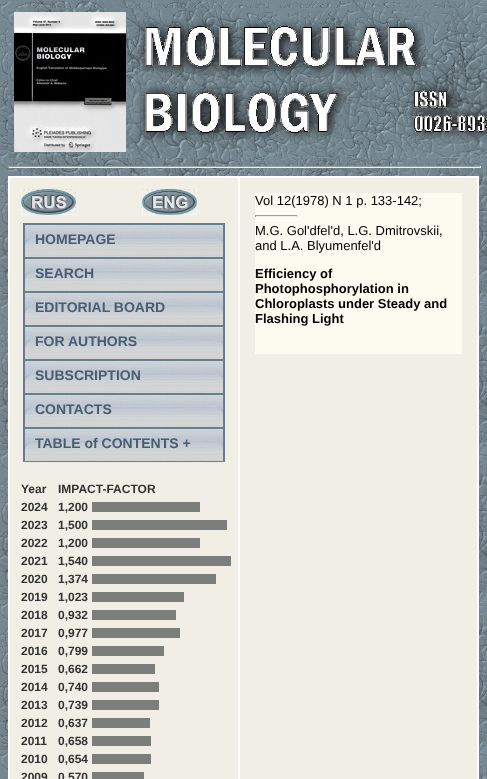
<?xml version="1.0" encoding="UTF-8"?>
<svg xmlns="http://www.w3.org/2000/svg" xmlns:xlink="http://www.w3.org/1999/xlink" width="487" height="779">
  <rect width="100%" height="100%" fill="#ffffff" />
  <image x="0" y="0" width="487" height="779" xlink:href="image1.png" />
  <image x="8" y="8" width="479" height="150" xlink:href="image2.png" />
  <rect x="8" y="166" width="473" height="1" fill="#9f9f9f" />
  <rect x="480" y="166" width="1" height="2" fill="#eeeeee" />
  <rect x="8" y="167" width="473" height="1" fill="#eeeeee" />
  <rect x="8" y="166" width="1" height="2" fill="#9f9f9f" />
  <rect x="8.5" y="176.5" width="470" height="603" fill="none" stroke="#ffffff" />
  <rect x="9.5" y="177.5" width="229" height="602" fill="#f0eee5" stroke="#ffffff" />
  <image x="21" y="189" width="55" height="26" xlink:href="image3.png" />
  <image x="142" y="189" width="55" height="26" xlink:href="image4.png" />
  <rect x="23" y="223" width="202" height="1" fill="#677d92" />
  <rect x="224" y="223" width="1" height="239" fill="#677d92" />
  <rect x="23" y="223" width="1" height="239" fill="#677d92" />
  <image x="25" y="225" width="198" height="32" xlink:href="image5.png" />
  <rect x="24.5" y="224.5" width="199" height="33" fill="none" stroke="#677d92" />
  <image x="25" y="259" width="198" height="32" xlink:href="image5.png" />
  <rect x="24.5" y="258.5" width="199" height="33" fill="none" stroke="#677d92" />
  <image x="25" y="293" width="198" height="32" xlink:href="image5.png" />
  <rect x="24.5" y="292.5" width="199" height="33" fill="none" stroke="#677d92" />
  <image x="25" y="327" width="198" height="32" xlink:href="image5.png" />
  <rect x="24.5" y="326.5" width="199" height="33" fill="none" stroke="#677d92" />
  <image x="25" y="361" width="198" height="32" xlink:href="image5.png" />
  <rect x="24.5" y="360.5" width="199" height="33" fill="none" stroke="#677d92" />
  <image x="25" y="395" width="198" height="32" xlink:href="image5.png" />
  <rect x="24.5" y="394.5" width="199" height="33" fill="none" stroke="#677d92" />
  <image x="25" y="429" width="198" height="32" xlink:href="image5.png" />
  <rect x="24.5" y="428.5" width="199" height="33" fill="none" stroke="#677d92" />
  <rect x="92" y="502" width="108" height="10" fill="#7b7e7b" />
  <rect x="92" y="520" width="135" height="10" fill="#7b7e7b" />
  <rect x="92" y="538" width="108" height="10" fill="#7b7e7b" />
  <rect x="92" y="556" width="139" height="10" fill="#7b7e7b" />
  <rect x="92" y="574" width="124" height="10" fill="#7b7e7b" />
  <rect x="92" y="592" width="92" height="10" fill="#7b7e7b" />
  <rect x="92" y="610" width="84" height="10" fill="#7b7e7b" />
  <rect x="92" y="628" width="88" height="10" fill="#7b7e7b" />
  <rect x="92" y="646" width="72" height="10" fill="#7b7e7b" />
  <rect x="92" y="664" width="63" height="10" fill="#7b7e7b" />
  <rect x="92" y="682" width="67" height="10" fill="#7b7e7b" />
  <rect x="92" y="700" width="67" height="10" fill="#7b7e7b" />
  <rect x="92" y="718" width="58" height="10" fill="#7b7e7b" />
  <rect x="92" y="736" width="59" height="10" fill="#7b7e7b" />
  <rect x="92" y="754" width="59" height="10" fill="#7b7e7b" />
  <rect x="92" y="772" width="52" height="7" fill="#7b7e7b" />
  <rect x="239.5" y="177.5" width="238" height="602" fill="#f0eee5" stroke="#ffffff" />
  <rect x="255" y="193" width="207" height="161" fill="#fbfbef" />
  <rect x="255" y="215" width="43" height="1" fill="#9f9f9f" />
  <rect x="297" y="215" width="1" height="2" fill="#eeeeee" />
  <rect x="255" y="216" width="43" height="1" fill="#eeeeee" />
  <rect x="255" y="215" width="1" height="2" fill="#9f9f9f" />
  <text x="35" y="244" style="font-family: Liberation Sans; font-size: 14px; font-weight: bold; fill: #475d72">HOMEPAGE</text>
  <text x="35" y="278" style="font-family: Liberation Sans; font-size: 14px; font-weight: bold; fill: #475d72">SEARCH</text>
  <text x="35" y="312" style="font-family: Liberation Sans; font-size: 14px; font-weight: bold; fill: #475d72">EDITORIAL BOARD</text>
  <text x="35" y="346" style="font-family: Liberation Sans; font-size: 14px; font-weight: bold; fill: #475d72">FOR AUTHORS</text>
  <text x="35" y="380" style="font-family: Liberation Sans; font-size: 14px; font-weight: bold; fill: #475d72">SUBSCRIPTION</text>
  <text x="35" y="414" style="font-family: Liberation Sans; font-size: 14px; font-weight: bold; fill: #475d72">CONTACTS</text>
  <text x="35" y="448" style="font-family: Liberation Sans; font-size: 14px; font-weight: bold; fill: #475d72">TABLE of CONTENTS +</text>
  <text x="21" y="493" style="font-family: Liberation Sans; font-size: 12px; font-weight: bold; fill: #333333">Year</text>
  <text x="58" y="493" style="font-family: Liberation Sans; font-size: 12px; font-weight: bold; fill: #333333">IMPACT-FACTOR</text>
  <text x="21" y="511" style="font-family: Liberation Sans; font-size: 12px; font-weight: bold; fill: #333333">2024</text>
  <text x="58" y="511" style="font-family: Liberation Sans; font-size: 12px; font-weight: bold; fill: #333333">1,200</text>
  <text x="21" y="529" style="font-family: Liberation Sans; font-size: 12px; font-weight: bold; fill: #333333">2023</text>
  <text x="58" y="529" style="font-family: Liberation Sans; font-size: 12px; font-weight: bold; fill: #333333">1,500</text>
  <text x="21" y="547" style="font-family: Liberation Sans; font-size: 12px; font-weight: bold; fill: #333333">2022</text>
  <text x="58" y="547" style="font-family: Liberation Sans; font-size: 12px; font-weight: bold; fill: #333333">1,200</text>
  <text x="21" y="565" style="font-family: Liberation Sans; font-size: 12px; font-weight: bold; fill: #333333">2021</text>
  <text x="58" y="565" style="font-family: Liberation Sans; font-size: 12px; font-weight: bold; fill: #333333">1,540</text>
  <text x="21" y="583" style="font-family: Liberation Sans; font-size: 12px; font-weight: bold; fill: #333333">2020</text>
  <text x="58" y="583" style="font-family: Liberation Sans; font-size: 12px; font-weight: bold; fill: #333333">1,374</text>
  <text x="21" y="601" style="font-family: Liberation Sans; font-size: 12px; font-weight: bold; fill: #333333">2019</text>
  <text x="58" y="601" style="font-family: Liberation Sans; font-size: 12px; font-weight: bold; fill: #333333">1,023</text>
  <text x="21" y="619" style="font-family: Liberation Sans; font-size: 12px; font-weight: bold; fill: #333333">2018</text>
  <text x="58" y="619" style="font-family: Liberation Sans; font-size: 12px; font-weight: bold; fill: #333333">0,932</text>
  <text x="21" y="637" style="font-family: Liberation Sans; font-size: 12px; font-weight: bold; fill: #333333">2017</text>
  <text x="58" y="637" style="font-family: Liberation Sans; font-size: 12px; font-weight: bold; fill: #333333">0,977</text>
  <text x="21" y="655" style="font-family: Liberation Sans; font-size: 12px; font-weight: bold; fill: #333333">2016</text>
  <text x="58" y="655" style="font-family: Liberation Sans; font-size: 12px; font-weight: bold; fill: #333333">0,799</text>
  <text x="21" y="673" style="font-family: Liberation Sans; font-size: 12px; font-weight: bold; fill: #333333">2015</text>
  <text x="58" y="673" style="font-family: Liberation Sans; font-size: 12px; font-weight: bold; fill: #333333">0,662</text>
  <text x="21" y="691" style="font-family: Liberation Sans; font-size: 12px; font-weight: bold; fill: #333333">2014</text>
  <text x="58" y="691" style="font-family: Liberation Sans; font-size: 12px; font-weight: bold; fill: #333333">0,740</text>
  <text x="21" y="709" style="font-family: Liberation Sans; font-size: 12px; font-weight: bold; fill: #333333">2013</text>
  <text x="58" y="709" style="font-family: Liberation Sans; font-size: 12px; font-weight: bold; fill: #333333">0,739</text>
  <text x="21" y="727" style="font-family: Liberation Sans; font-size: 12px; font-weight: bold; fill: #333333">2012</text>
  <text x="58" y="727" style="font-family: Liberation Sans; font-size: 12px; font-weight: bold; fill: #333333">0,637</text>
  <text x="21" y="745" style="font-family: Liberation Sans; font-size: 12px; font-weight: bold; fill: #333333">2011</text>
  <text x="58" y="745" style="font-family: Liberation Sans; font-size: 12px; font-weight: bold; fill: #333333">0,658</text>
  <text x="21" y="763" style="font-family: Liberation Sans; font-size: 12px; font-weight: bold; fill: #333333">2010</text>
  <text x="58" y="763" style="font-family: Liberation Sans; font-size: 12px; font-weight: bold; fill: #333333">0,654</text>
  <text x="21" y="781" style="font-family: Liberation Sans; font-size: 12px; font-weight: bold; fill: #333333">2009</text>
  <text x="58" y="781" style="font-family: Liberation Sans; font-size: 12px; font-weight: bold; fill: #333333">0,570</text>
  <text x="255" y="205" style="font-family: Liberation Sans; font-size: 13px; fill: #000000">Vol 12(1978) N 1 p. 133-142;</text>
  <text x="255" y="235" style="font-family: Liberation Sans; font-size: 13px; fill: #000000">M.G. Gol'dfel'd, L.G. Dmitrovskii,</text>
  <text x="255" y="250" style="font-family: Liberation Sans; font-size: 13px; fill: #000000">and L.A. Blyumenfel'd</text>
  <text x="255" y="278" style="font-family: Liberation Sans; font-size: 13px; font-weight: bold; fill: #000000">Efficiency of</text>
  <text x="255" y="293" style="font-family: Liberation Sans; font-size: 13px; font-weight: bold; fill: #000000">Photophosphorylation in</text>
  <text x="255" y="308" style="font-family: Liberation Sans; font-size: 13px; font-weight: bold; fill: #000000">Chloroplasts under Steady and</text>
  <text x="255" y="323" style="font-family: Liberation Sans; font-size: 13px; font-weight: bold; fill: #000000">Flashing Light</text>
</svg>
